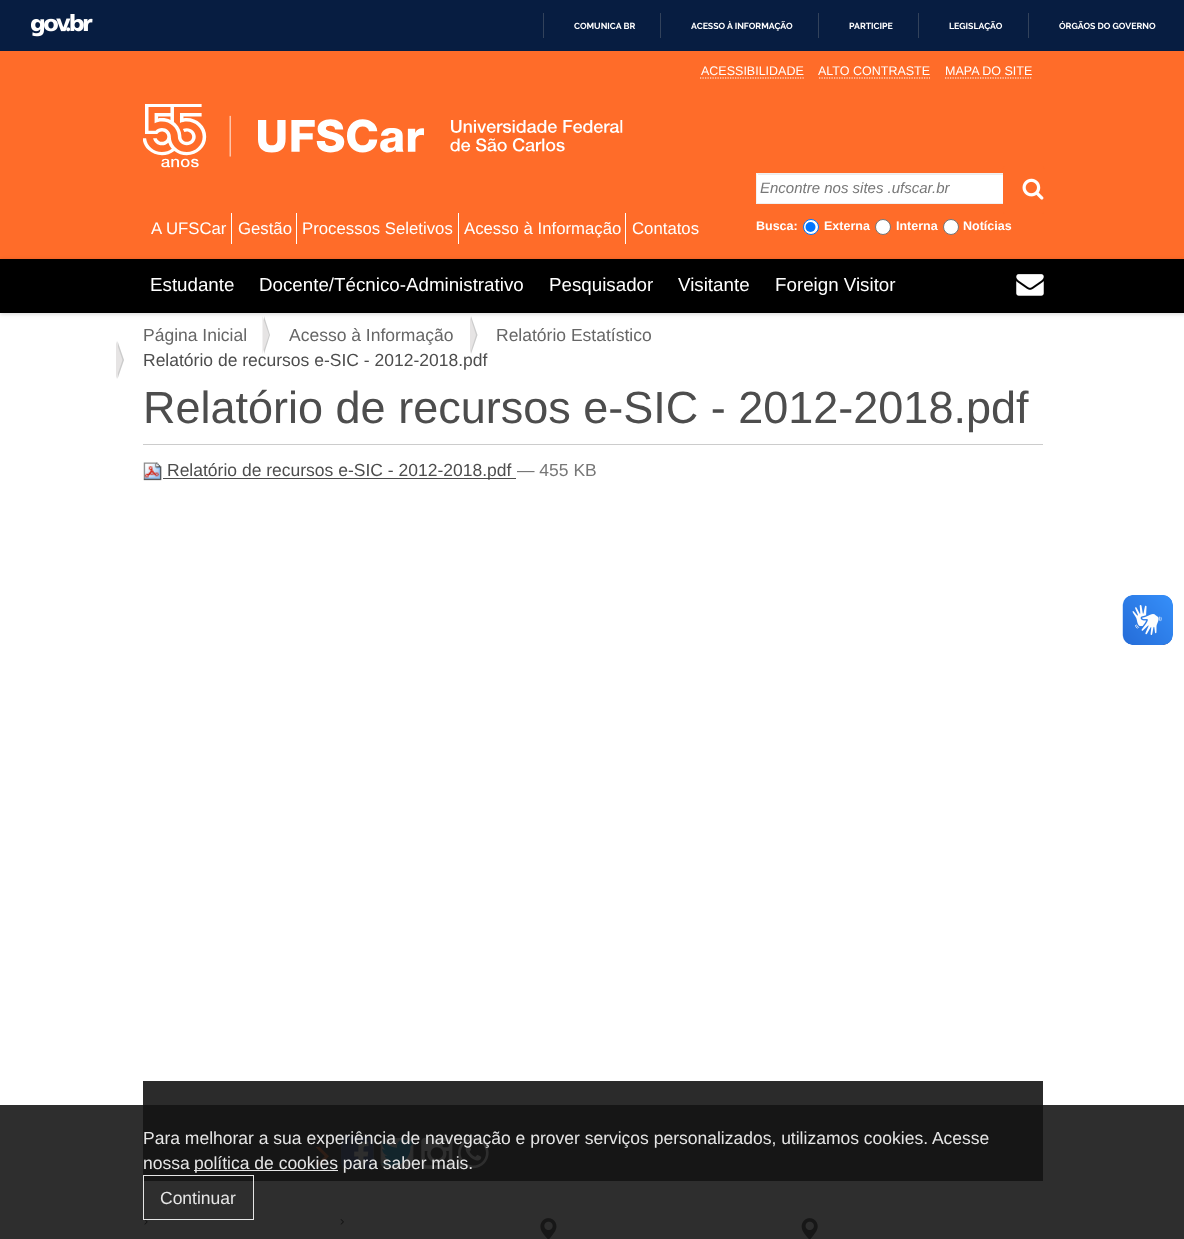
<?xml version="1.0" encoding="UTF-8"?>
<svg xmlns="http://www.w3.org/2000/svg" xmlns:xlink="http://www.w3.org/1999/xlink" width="1184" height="1239">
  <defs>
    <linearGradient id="g1" gradientUnits="userSpaceOnUse" x1="341" y1="1153" x2="374" y2="1153"><stop offset="0" stop-color="#1e5799" /><stop offset="0" stop-color="#2b2b2b" /><stop offset="0.05" stop-color="#ffffff" /><stop offset="0.95" stop-color="#ffffff" /><stop offset="1" stop-color="#2b2b2b" /></linearGradient>
    <linearGradient id="g2" gradientUnits="userSpaceOnUse" x1="380" y1="1153" x2="414" y2="1153"><stop offset="0" stop-color="#1e5799" /><stop offset="0" stop-color="#2b2b2b" /><stop offset="0.05" stop-color="#ffffff" /><stop offset="0.95" stop-color="#ffffff" /><stop offset="1" stop-color="#2b2b2b" /></linearGradient>
  </defs>
  <rect width="100%" height="100%" fill="#ffffff" />
  <rect width="1184" height="51" fill="#071d41" />
  <image x="31" y="14" width="62" height="23" xlink:href="image1.png" />
  <rect x="543" y="13" width="1" height="25" fill="#32425b" />
  <rect x="660" y="13" width="1" height="25" fill="#32425b" />
  <rect x="818" y="13" width="1" height="25" fill="#32425b" />
  <rect x="918" y="13" width="1" height="25" fill="#32425b" />
  <rect x="1028" y="13" width="1" height="25" fill="#32425b" />
  <rect y="51" width="1184" height="208" fill="#ff6c29" />
  <path d="M 700 78 h 104" fill="none" stroke="#ffffff" stroke-width="1.2" stroke-dasharray="1.25 1.25" />
  <path d="M 819 78 h 111" fill="none" stroke="#ffffff" stroke-width="1.2" stroke-dasharray="1.25 1.25" />
  <path d="M 945 78 h 87.5" fill="none" stroke="#ffffff" stroke-width="1.2" stroke-dasharray="1.25 1.25" />
  <image x="143" y="104" width="480" height="64" xlink:href="image2.png" />
  <rect x="231" y="213" width="1" height="31" fill="#ffffff" />
  <rect x="296" y="213" width="1" height="31" fill="#ffffff" />
  <rect x="458" y="213" width="1" height="31" fill="#ffffff" />
  <rect x="625" y="213" width="1" height="31" fill="#ffffff" />
  <rect x="757" y="174" width="246" height="29" fill="#ffffff" />
  <rect x="758" y="174" width="245" height="1" fill="#ececec" />
  <rect x="756.5" y="173.5" width="247" height="30" fill="none" stroke="#f1f1f1" />
  <rect x="1003" y="166" width="41" height="48" rx="2.5" fill="#ff6c29" />
  <image x="1022" y="178" width="22" height="22" xlink:href="image3.png" />
  <circle cx="811" cy="227" r="7.5" fill="#ffffff" stroke="#0075ff" />
  <circle cx="810.5" cy="227" r="5" fill="#0075ff" />
  <circle cx="883" cy="227" r="7.5" fill="#ffffff" stroke="#767676" />
  <circle cx="951" cy="227" r="7.5" fill="#ffffff" stroke="#767676" />
  <rect x="143" y="1081" width="900" height="100" fill="#2b2b2b" />
  <image x="316" y="1146" width="13" height="20" xlink:href="image8.png" />
  <rect x="341" y="1138" width="33" height="30" rx="6" fill="url(#g1)" />
  <image x="341" y="1136" width="33" height="33" xlink:href="image9.png" />
  <rect x="380" y="1138" width="34" height="30" rx="6" fill="url(#g2)" />
  <image x="381" y="1139" width="33" height="28" xlink:href="image10.png" />
  <image x="421" y="1137" width="32" height="32" xlink:href="image11.png" />
  <image x="457" y="1137" width="32" height="32" xlink:href="image12.png" />
  <image x="144" y="1220" width="4" height="5" xlink:href="image13.png" />
  <image x="340" y="1219" width="4" height="6" xlink:href="image14.png" />
  <image x="540" y="1218" width="17" height="21" xlink:href="image15.png" />
  <image x="801" y="1218" width="17" height="21" xlink:href="image16.png" />
  <rect y="1105" width="1184" height="134" fill="#141414" fill-opacity="0.89" />
  <rect x="194" y="1170" width="144" height="1" fill="#e5e5e5" />
  <rect x="143.5" y="1175.5" width="110" height="44" fill="none" stroke="#e5e5e5" />
  <rect y="260" width="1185" height="54" fill="#000000" fill-opacity="0.17" filter="blur(2px)" />
  <rect y="259" width="1184" height="54" fill="#000000" />
  <image x="1016" y="274" width="28" height="22" xlink:href="image4.png" />
  <path d="M 264 354 v -38 l 6 19 z" fill="#cccccc" />
  <path d="M 262.5 354 v -38 l 6.5 19 z" fill="#e6e4e4" />
  <path d="M 471 354 v -38 l 6.5 19 z" fill="#cccccc" />
  <path d="M 470 354 v -38 l 6 19 z" fill="#e6e4e4" />
  <path d="M 117.5 379 v -38 l 6.5 19 z" fill="#cccccc" />
  <path d="M 116 379 v -38 l 6.5 19 z" fill="#e6e4e4" />
  <rect x="143" y="444" width="900" height="1" fill="#cccccc" />
  <image x="143" y="462" width="19" height="19" xlink:href="image5.png" />
  <rect x="163" y="478" width="353" height="1" fill="#4d4d4d" />
  <image x="1122" y="595" width="51" height="50" xlink:href="image6.png" />
  <image x="1123" y="595" width="50" height="50" xlink:href="image7.png" />
  <text x="574" y="29" style="font-family: Raleway; font-size: 8.75px; font-weight: bold; fill: #ffffff">COMUNICA BR</text>
  <text x="691" y="29" style="font-family: Raleway; font-size: 8.75px; font-weight: bold; fill: #ffffff">ACESSO À INFORMAÇÃO</text>
  <text x="849" y="29" style="font-family: Raleway; font-size: 8.75px; font-weight: bold; fill: #ffffff">PARTICIPE</text>
  <text x="949" y="29" style="font-family: Raleway; font-size: 8.75px; font-weight: bold; fill: #ffffff">LEGISLAÇÃO</text>
  <text x="1059" y="29" style="font-family: Raleway; font-size: 8.75px; font-weight: bold; fill: #ffffff">ÓRGÃOS DO GOVERNO</text>
  <text x="701" y="75" style="font-family: Liberation Sans; font-size: 12.5px; fill: #ffffff">ACESSIBILIDADE</text>
  <text x="818" y="75" style="font-family: Liberation Sans; font-size: 12.5px; fill: #ffffff">ALTO CONTRASTE</text>
  <text x="945" y="75" style="font-family: Liberation Sans; font-size: 12.5px; fill: #ffffff">MAPA DO SITE</text>
  <text x="151" y="234" style="font-family: Liberation Sans; font-size: 16.75px; fill: #ffffff">A UFSCar</text>
  <text x="238" y="234" style="font-family: Liberation Sans; font-size: 16.75px; fill: #ffffff">Gestão</text>
  <text x="302" y="234" style="font-family: Liberation Sans; font-size: 16.75px; fill: #ffffff">Processos Seletivos</text>
  <text x="464" y="234" style="font-family: Liberation Sans; font-size: 16.75px; fill: #ffffff">Acesso à Informação</text>
  <text x="632" y="234" style="font-family: Liberation Sans; font-size: 16.75px; fill: #ffffff">Contatos</text>
  <text x="760" y="193" style="font-family: Liberation Sans; font-size: 15px; font-style: italic; fill: #777777">Encontre nos sites .ufscar.br</text>
  <text x="756" y="230" style="font-family: Liberation Sans; font-size: 12.5px; font-weight: bold; fill: #ffffff">Busca:</text>
  <text x="824" y="230" style="font-family: Liberation Sans; font-size: 12.5px; font-weight: bold; fill: #ffffff">Externa</text>
  <text x="896" y="230" style="font-family: Liberation Sans; font-size: 12.5px; font-weight: bold; fill: #ffffff">Interna</text>
  <text x="963" y="230" style="font-family: Liberation Sans; font-size: 12.5px; font-weight: bold; fill: #ffffff">Notícias</text>
  <text x="143" y="1144" style="font-family: Liberation Sans; font-size: 17.5px; fill: #e5e5e5">Para melhorar a sua experiência de navegação e prover serviços personalizados, utilizamos cookies. Acesse</text>
  <text x="143" y="1169" style="font-family: Liberation Sans; font-size: 17.5px; fill: #e5e5e5">nossa</text>
  <text x="194" y="1169" style="font-family: Liberation Sans; font-size: 17.5px; fill: #e5e5e5">política de cookies para saber mais.</text>
  <text x="160" y="1204" style="font-family: Liberation Sans; font-size: 17.5px; fill: #e5e5e5">Continuar</text>
  <text x="150" y="291" style="font-family: Liberation Sans; font-size: 18.75px; fill: #ffffff">Estudante</text>
  <text x="259" y="291" style="font-family: Liberation Sans; font-size: 18.75px; fill: #ffffff">Docente/Técnico-Administrativo</text>
  <text x="549" y="291" style="font-family: Liberation Sans; font-size: 18.75px; fill: #ffffff">Pesquisador</text>
  <text x="678" y="291" style="font-family: Liberation Sans; font-size: 18.75px; fill: #ffffff">Visitante</text>
  <text x="775" y="291" style="font-family: Liberation Sans; font-size: 18.75px; fill: #ffffff">Foreign Visitor</text>
  <text x="143" y="341" style="font-family: Liberation Sans; font-size: 17.5px; fill: #666666">Página Inicial</text>
  <text x="289" y="341" style="font-family: Liberation Sans; font-size: 17.5px; fill: #666666">Acesso à Informação</text>
  <text x="496" y="341" style="font-family: Liberation Sans; font-size: 17.5px; fill: #666666">Relatório Estatístico</text>
  <text x="143" y="366" style="font-family: Liberation Sans; font-size: 17.5px; fill: #4d4d4d">Relatório de recursos e-SIC - 2012-2018.pdf</text>
  <text x="143" y="423" style="font-family: Liberation Sans; font-size: 45px; fill: #4d4d4d">Relatório de recursos e-SIC - 2012-2018.pdf</text>
  <text x="167" y="476" style="font-family: Liberation Sans; font-size: 17.5px; fill: #4d4d4d">Relatório de recursos e-SIC - 2012-2018.pdf</text>
  <text x="517" y="476" style="font-family: Liberation Sans; font-size: 17.5px; fill: #777777">— 455 KB</text>
</svg>
